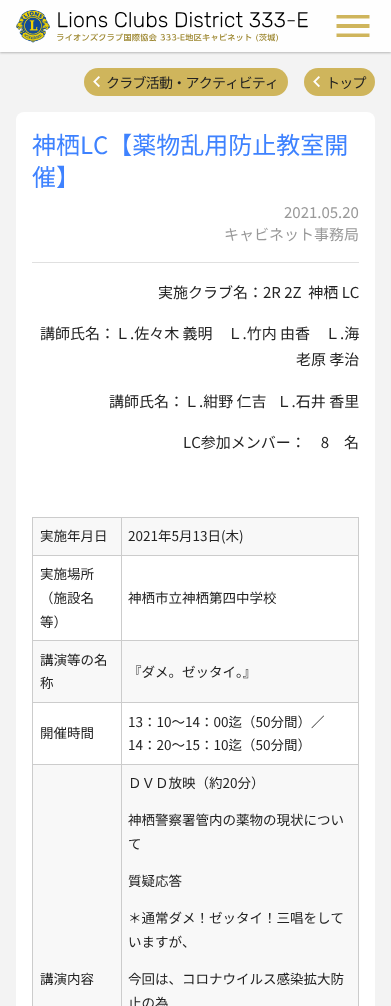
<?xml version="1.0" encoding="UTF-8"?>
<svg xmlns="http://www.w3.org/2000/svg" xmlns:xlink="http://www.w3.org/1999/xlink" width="391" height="1006">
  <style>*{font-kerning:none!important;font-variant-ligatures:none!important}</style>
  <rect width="100%" height="100%" fill="#f3f3f3" />
  <rect y="1" width="391" height="52" fill="#000000" fill-opacity="0.25" filter="blur(1px)" />
  <rect width="391" height="52" fill="#fefefe" />
  <image x="16" y="10" width="292" height="33" xlink:href="image1.png" />
  <path d="M 336.5 37 h 33 v -3.5 h -33 z m 0 -9 h 33 v -4 h -33 z m 0 -13 v 3.5 h 33 v -3.5 z" fill="#cfb55c" />
  <rect x="84" y="68" width="204" height="28" rx="14" fill="#cfb55c" />
  <image x="93" y="76" width="7" height="12" xlink:href="image2.png" />
  <rect x="304" y="68" width="71" height="28" rx="14" fill="#cfb55c" />
  <image x="313" y="76" width="7" height="12" xlink:href="image2.png" />
  <rect x="16" y="112" width="359" height="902" rx="8" fill="#ffffff" />
  <rect x="32" y="262" width="327" height="1" fill="#e0e0e0" />
  <rect x="33" y="518" width="88" height="37" fill="#f8f8f8" />
  <rect x="121" y="517" width="238" height="1" fill="#cccccc" />
  <rect x="121" y="555" width="238" height="1" fill="#cccccc" />
  <rect x="121" y="640" width="238" height="1" fill="#cccccc" />
  <rect x="121" y="702" width="238" height="1" fill="#cccccc" />
  <rect x="121" y="764" width="238" height="1" fill="#cccccc" />
  <rect x="121" y="764" width="1" height="242" fill="#cccccc" />
  <rect x="32" y="764" width="90" height="1" fill="#cccccc" />
  <rect x="121" y="702" width="1" height="63" fill="#cccccc" />
  <rect x="32" y="702" width="90" height="1" fill="#cccccc" />
  <rect x="121" y="640" width="1" height="63" fill="#cccccc" />
  <rect x="32" y="640" width="90" height="1" fill="#cccccc" />
  <rect x="121" y="555" width="1" height="86" fill="#cccccc" />
  <rect x="32" y="555" width="90" height="1" fill="#cccccc" />
  <rect x="121" y="517" width="1" height="39" fill="#cccccc" />
  <rect x="32" y="517" width="90" height="1" fill="#cccccc" />
  <rect x="32" y="764" width="1" height="242" fill="#cccccc" />
  <rect x="32" y="702" width="1" height="63" fill="#cccccc" />
  <rect x="32" y="640" width="1" height="63" fill="#cccccc" />
  <rect x="32" y="555" width="1" height="86" fill="#cccccc" />
  <rect x="32" y="517" width="1" height="39" fill="#cccccc" />
  <rect x="122" y="518" width="236" height="37" fill="#f8f8f8" />
  <rect x="358" y="764" width="1" height="242" fill="#cccccc" />
  <rect x="358" y="702" width="1" height="63" fill="#cccccc" />
  <rect x="358" y="640" width="1" height="63" fill="#cccccc" />
  <rect x="358" y="555" width="1" height="86" fill="#cccccc" />
  <rect x="358" y="517" width="1" height="39" fill="#cccccc" />
  <rect x="33" y="641" width="88" height="61" fill="#f8f8f8" />
  <rect x="122" y="641" width="236" height="61" fill="#f8f8f8" />
  <rect x="33" y="765" width="88" height="241" fill="#f8f8f8" />
  <rect x="122" y="765" width="236" height="241" fill="#f8f8f8" />
  <text x="106" y="88" style="font-family: Noto Sans JP; font-size: 14px; letter-spacing: -0.75px; fill: #222222">クラブ活動・アクティビティ</text>
  <text x="326" y="88" style="font-family: Noto Sans JP; font-size: 14px; letter-spacing: -0.75px; fill: #222222">トップ</text>
  <text x="32" y="154" style="font-family: Noto Sans JP; font-size: 24px; fill: #3e82ff">神栖LC【薬物乱用防止教室開</text>
  <text x="32" y="186" style="font-family: Noto Sans JP; font-size: 24px; fill: #3e82ff">催】</text>
  <text x="284" y="218" style="font-family: Noto Sans JP; font-size: 15px; fill: #999999">2021.05.20</text>
  <text x="224" y="240" style="font-family: Noto Sans JP; font-size: 15px; fill: #999999">キャビネット事務局</text>
  <text x="158" y="298" style="font-family: Noto Sans JP; font-size: 15px; fill: #222222" xml:space="preserve">実施クラブ名：2R 2Z  神栖 LC</text>
  <text x="40" y="339" style="font-family: Noto Sans JP; font-size: 15px; fill: #222222">講師氏名：Ｌ.佐々木 義明　Ｌ.竹内 由香　Ｌ.海</text>
  <text x="296" y="365" style="font-family: Noto Sans JP; font-size: 15px; fill: #222222">老原 孝治</text>
  <text x="109" y="407" style="font-family: Noto Sans JP; font-size: 15px; fill: #222222" xml:space="preserve">講師氏名：Ｌ.紺野 仁吉   Ｌ.石井 香里</text>
  <text x="183" y="448" style="font-family: Noto Sans JP; font-size: 15px; fill: #222222">LC参加メンバー：　8　名</text>
  <text x="40" y="541" style="font-family: Noto Sans JP; font-size: 13.5px; fill: #222222">実施年月日</text>
  <text x="128" y="541" style="font-family: Noto Sans JP; font-size: 13.5px; fill: #222222">2021年5月13日(木)</text>
  <text x="40" y="579" style="font-family: Noto Sans JP; font-size: 13.5px; fill: #222222">実施場所</text>
  <text x="40" y="603" style="font-family: Noto Sans JP; font-size: 13.5px; fill: #222222">（施設名</text>
  <text x="40" y="627" style="font-family: Noto Sans JP; font-size: 13.5px; fill: #222222">等）</text>
  <text x="128" y="603" style="font-family: Noto Sans JP; font-size: 13.5px; fill: #222222">神栖市立神栖第四中学校</text>
  <text x="40" y="665" style="font-family: Noto Sans JP; font-size: 13.5px; fill: #222222">講演等の名</text>
  <text x="40" y="688" style="font-family: Noto Sans JP; font-size: 13.5px; fill: #222222">称</text>
  <text x="128" y="677" style="font-family: Noto Sans JP; font-size: 13.5px; fill: #222222">『ダメ。ゼッタイ。』</text>
  <text x="40" y="738" style="font-family: Noto Sans JP; font-size: 13.5px; fill: #222222">開催時間</text>
  <text x="128" y="727" style="font-family: Noto Sans JP; font-size: 13.5px; fill: #222222">13：10～14：00迄（50分間）／</text>
  <text x="128" y="750" style="font-family: Noto Sans JP; font-size: 13.5px; fill: #222222">14：20～15：10迄（50分間）</text>
  <text x="40" y="984" style="font-family: Noto Sans JP; font-size: 13.5px; fill: #222222">講演内容</text>
  <text x="128" y="788" style="font-family: Noto Sans JP; font-size: 13.5px; fill: #222222">ＤＶＤ放映（約20分）</text>
  <text x="128" y="825" style="font-family: Noto Sans JP; font-size: 13.5px; fill: #222222">神栖警察署管内の薬物の現状につい</text>
  <text x="128" y="849" style="font-family: Noto Sans JP; font-size: 13.5px; fill: #222222">て</text>
  <text x="128" y="886" style="font-family: Noto Sans JP; font-size: 13.5px; fill: #222222">質疑応答</text>
  <text x="128" y="923" style="font-family: Noto Sans JP; font-size: 13.5px; fill: #222222">＊通常ダメ！ゼッタイ！三唱をして</text>
  <text x="128" y="947" style="font-family: Noto Sans JP; font-size: 13.5px; fill: #222222">いますが、</text>
  <text x="128" y="984" style="font-family: Noto Sans JP; font-size: 13.5px; fill: #222222">今回は、コロナウイルス感染拡大防</text>
  <text x="128" y="1008" style="font-family: Noto Sans JP; font-size: 13.5px; fill: #222222">止の為</text>
</svg>
